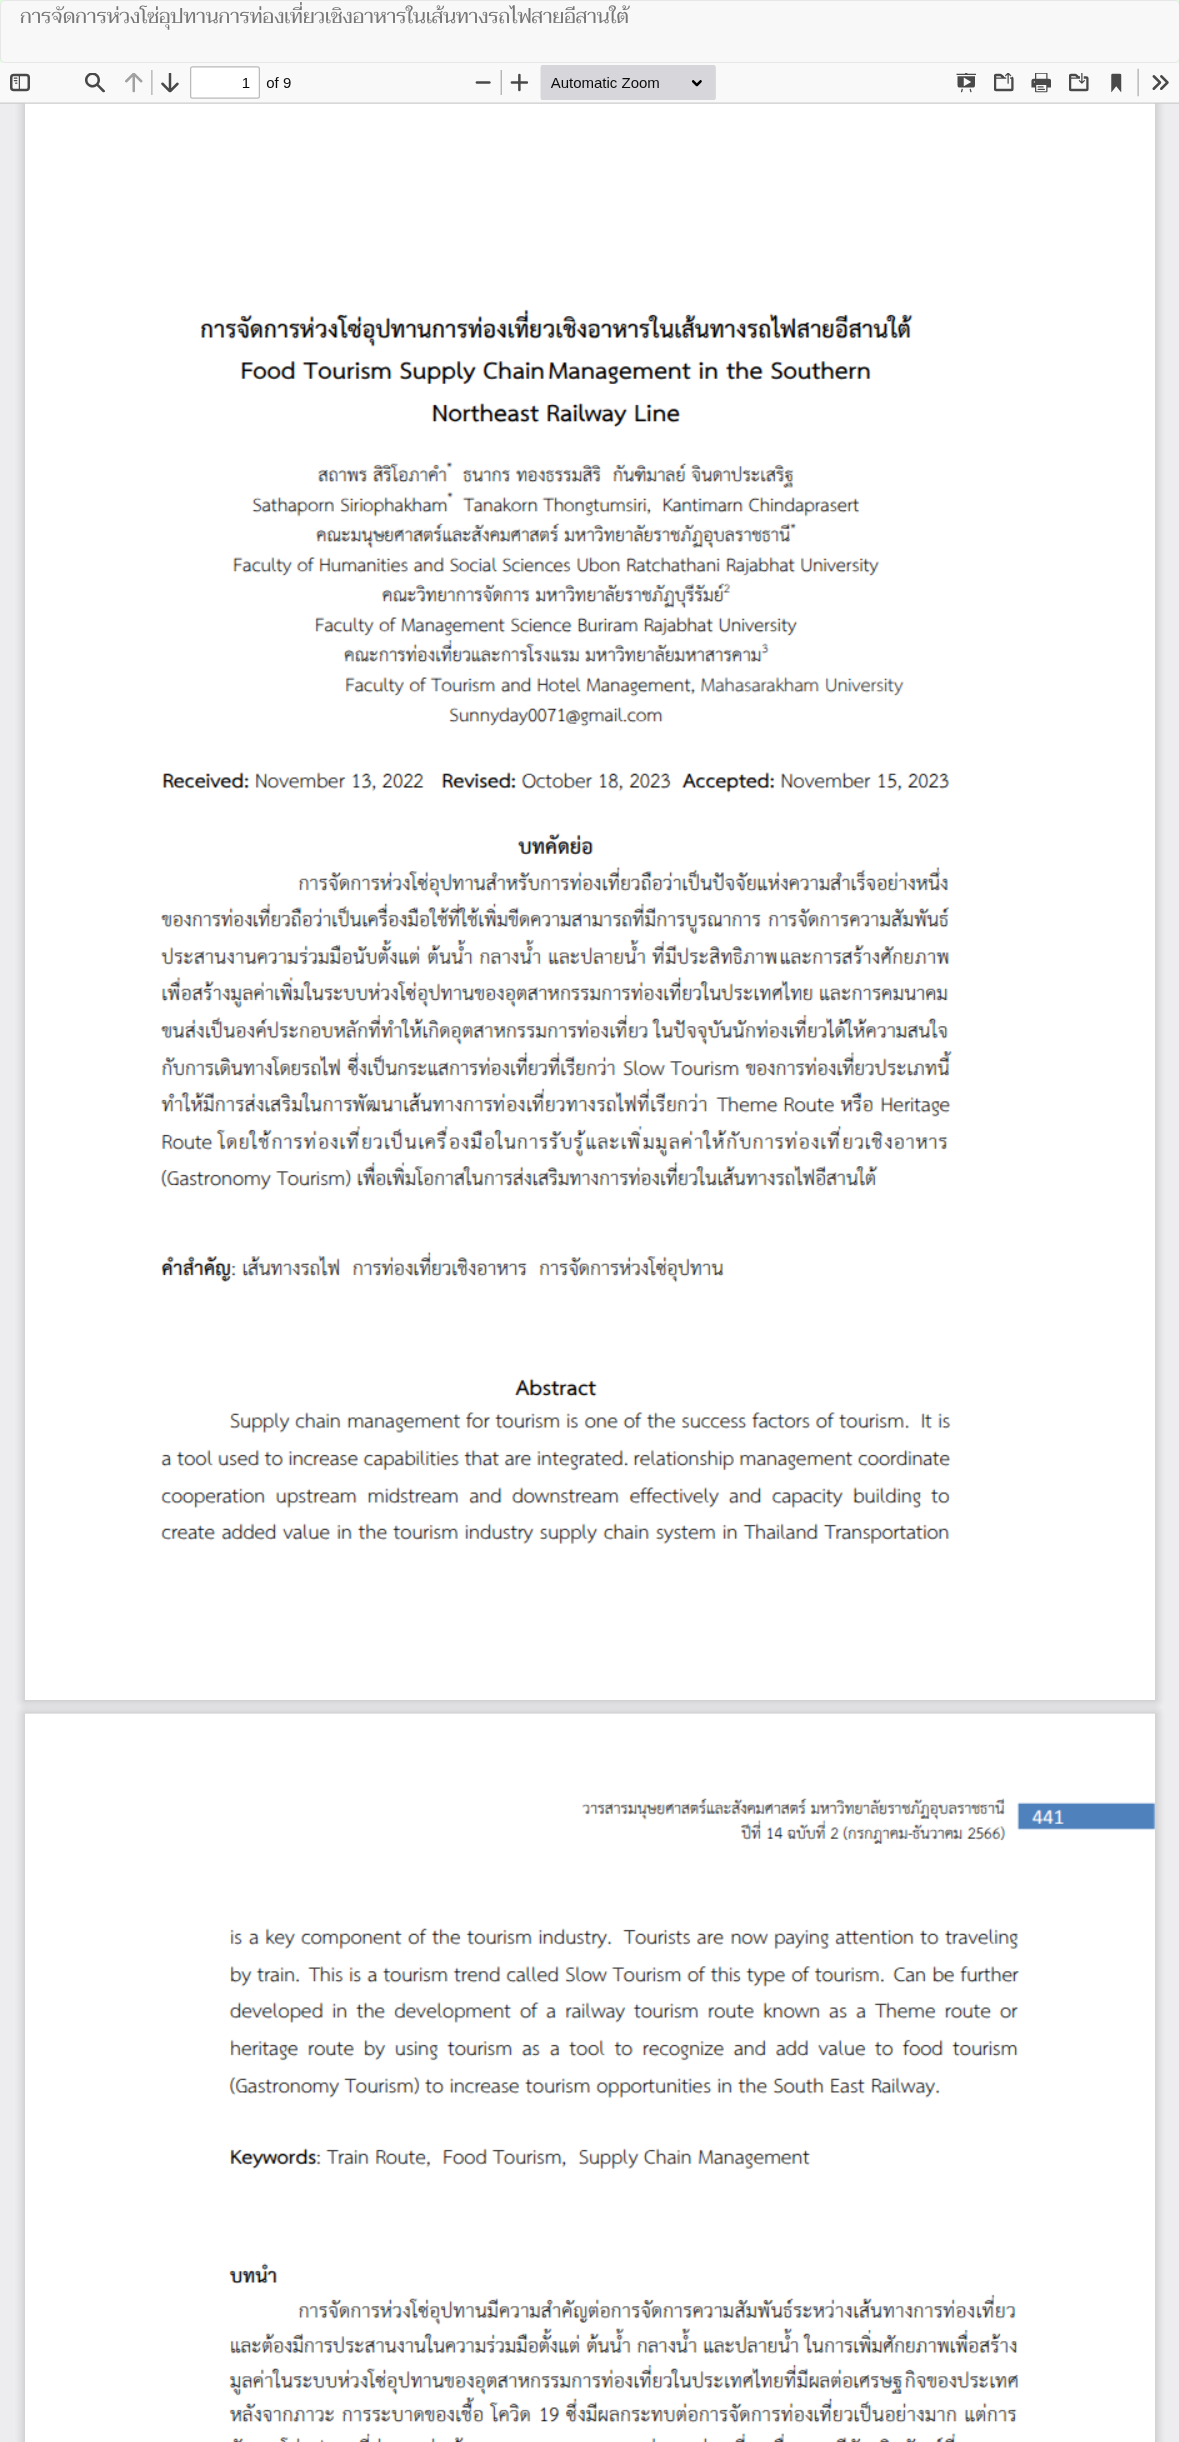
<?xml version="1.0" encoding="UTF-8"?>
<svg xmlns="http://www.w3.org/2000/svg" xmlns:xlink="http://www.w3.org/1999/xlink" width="1179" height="2442">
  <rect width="100%" height="100%" fill="#dcffda" />
  <image x="0" y="62" width="1179" height="2380" xlink:href="image1.png" />
  <rect x="0.5" y="0.5" width="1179" height="62" rx="4.5" fill="#f8f8f8" stroke="#e7e7e7" />
  <text x="20" y="23" style="font-family: Taviraj; font-size: 20px; fill: #777777">การจัดการห่วงโซ่อุปทานการท่องเที่ยวเชิงอาหารในเส้นทางรถไฟสายอีสานใต้</text>
</svg>
